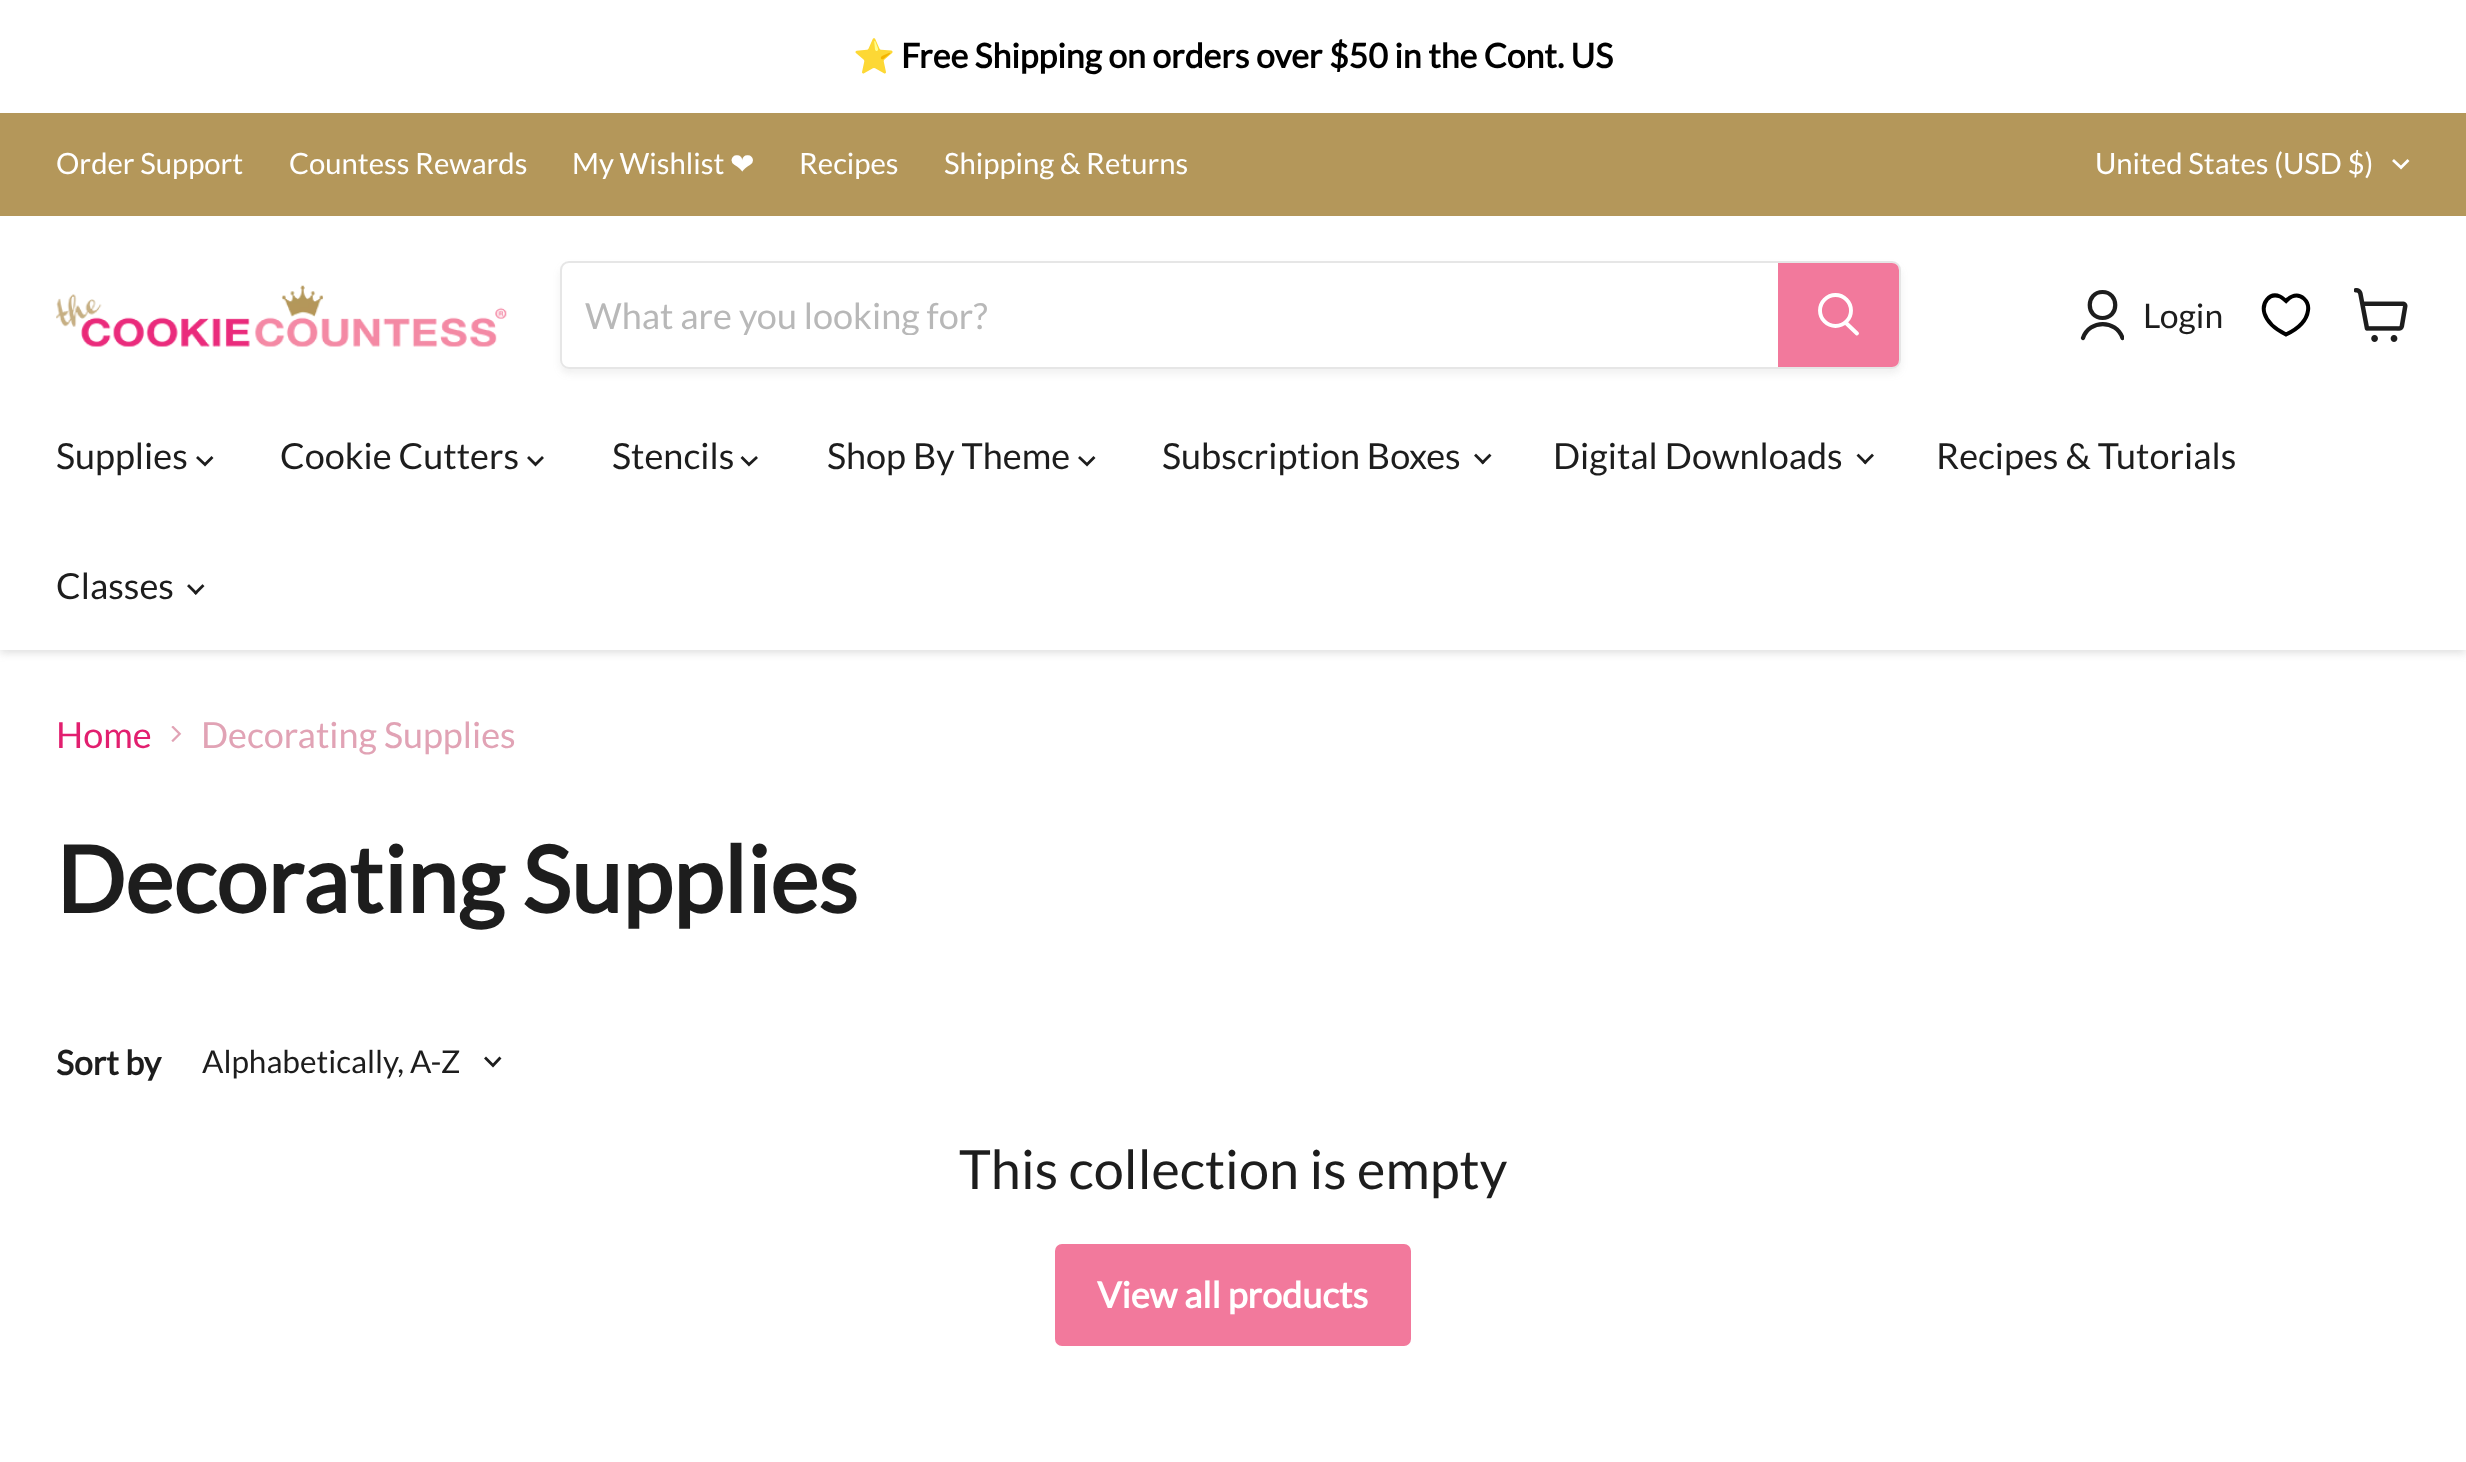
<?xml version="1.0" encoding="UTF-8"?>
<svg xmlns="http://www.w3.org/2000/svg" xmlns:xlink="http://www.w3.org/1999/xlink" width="2466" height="1462">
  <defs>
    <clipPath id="clip1"><path d="M 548 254 h 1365 v 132 h -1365 z m 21 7 h 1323 c 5 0 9 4 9 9 v 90 c 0 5 -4 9 -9 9 h -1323 c -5 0 -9 -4 -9 -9 v -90 c 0 -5 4 -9 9 -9 z" clip-rule="evenodd" /></clipPath>
    <clipPath id="clip2"><rect x="2079" y="288" width="45" height="54" /></clipPath>
    <clipPath id="clip3"><rect x="585" y="293" width="1170" height="42" /></clipPath>
  </defs>
  <rect width="100%" height="100%" fill="#ffffff" />
  <rect y="221" width="2466" height="432" fill="#808080" fill-opacity="0.25" filter="blur(4.5px)" />
  <rect y="113" width="2466" height="103" fill="#b4975a" />
  <path d="M 2401 167.5 l 6.5 -6.5 m -6.5 6.5 l -7 -6.5" fill="none" stroke="#ffffff" stroke-width="2.8" stroke-linecap="square" />
  <rect y="216" width="2466" height="434" fill="#ffffff" />
  <image x="56" y="285" width="451" height="62" xlink:href="image1.png" />
  <g clip-path="url(#clip1)">
    <rect x="560" y="266" width="1341" height="108" rx="9" fill="#808080" fill-opacity="0.11" filter="blur(3.5px)" />
  </g>
  <rect x="561" y="262" width="1339" height="106" rx="8" fill="none" stroke="#808080" stroke-opacity="0.2" stroke-width="2" />
  <path d="M 1779 264 h 113 c 3.5 0 6 2.5 6 6 v 90 c 0 3.5 -2.5 6 -6 6 h -113 z" fill="#f2799c" stroke="#f2799c" stroke-width="2" />
  <path d="M 1857 333.5 l -11 -10.5" fill="none" stroke="#ffffff" stroke-width="3.9" stroke-linecap="round" />
  <circle cx="1835.5" cy="310.5" r="15.5" fill="none" stroke="#ffffff" stroke-width="3.9" />
  <path d="M 2102.5 318 c 17 0 17 -26 0 -26 c -17 0 -17 26 0 26 z" fill="none" stroke="#1d1d1d" stroke-width="4.2" stroke-linecap="round" stroke-linejoin="round" />
  <g clip-path="url(#clip2)">
    <path d="M 2122.5 338 c -6.5 -18.5 -33 -18.5 -39.5 0" fill="none" stroke="#1d1d1d" stroke-width="4.2" stroke-linecap="round" stroke-linejoin="round" />
  </g>
  <path d="M 2286 334.5 c -9 -4.5 -18.5 -11 -21.5 -21 c -3 -10 4.5 -21.5 15.5 -17 c 2.5 1 4 3 6 4.5 c 1.5 -1.5 3.5 -3.5 6 -4.5 c 9 -4 17.5 5 16 14 c -1.5 11.5 -12.5 19.5 -22 24 z" fill="none" stroke="#000000" stroke-width="4" />
  <image x="2354" y="288" width="54" height="54" xlink:href="image2.png" />
  <path d="M 205 464.5 l 6.5 -6.5 m -6.5 6.5 l -7 -6.5" fill="none" stroke="#1d1d1d" stroke-width="2.8" stroke-linecap="square" />
  <path d="M 535.5 464.5 l 6.5 -6.5 m -6.5 6.5 l -6.5 -6.5" fill="none" stroke="#1d1d1d" stroke-width="2.8" stroke-linecap="square" />
  <path d="M 749 464.5 l 7 -6.5 m -7 6.5 l -6.5 -6.5" fill="none" stroke="#1d1d1d" stroke-width="2.8" stroke-linecap="square" />
  <path d="M 1087 464.5 l 6.5 -6.5 m -6.5 6.5 l -7 -6.5" fill="none" stroke="#1d1d1d" stroke-width="2.8" stroke-linecap="square" />
  <image x="1474" y="453" width="18" height="12" xlink:href="image3.png" />
  <image x="1856" y="453" width="18" height="12" xlink:href="image4.png" />
  <image x="187" y="584" width="18" height="11" xlink:href="image5.png" />
  <image x="171" y="726" width="11" height="16" xlink:href="image6.png" />
  <path d="M 493 1065.5 l 6.5 -7 m -6.5 7 l -7 -7" fill="none" stroke="#1d1d1d" stroke-width="2.8" stroke-linecap="square" />
  <rect x="1056" y="1245" width="354" height="100" rx="6" fill="#f2799c" stroke="#f2799c" stroke-width="2" />
  <text x="853" y="68" style="font-family: Noto Color Emoji; font-size: 33.75px; font-weight: bold; fill: #000000">⭐️</text>
  <text x="901" y="68" style="font-family: Lato; font-size: 33.75px; font-weight: bold; fill: #000000">Free Shipping on orders over $50 in the Cont. US</text>
  <text x="56" y="174" style="font-family: Lato; font-size: 29.25px; fill: #ffffff">Order Support</text>
  <text x="289" y="174" style="font-family: Lato; font-size: 29.25px; fill: #ffffff">Countess Rewards</text>
  <text x="572" y="174" style="font-family: Lato; font-size: 29.25px; fill: #ffffff">My Wishlist</text>
  <text x="730" y="174" style="font-family: DejaVu Sans; font-size: 29.25px; fill: #ffffff">❤</text>
  <text x="799" y="174" style="font-family: Lato; font-size: 29.25px; fill: #ffffff">Recipes</text>
  <text x="944" y="174" style="font-family: Lato; font-size: 29.25px; fill: #ffffff">Shipping &amp; Returns</text>
  <text x="2095" y="174" style="font-family: Lato; font-size: 29.25px; fill: #ffffff">United States (USD $)</text>
  <g clip-path="url(#clip3)">
    <text x="585" y="329" style="font-family: Lato; font-size: 36px; fill: #b8b8b8">What are you looking for?</text>
  </g>
  <text x="2143" y="328" style="font-family: Lato; font-size: 33.75px; fill: #1d1d1d">Login</text>
  <text x="56" y="469" style="font-family: Lato; font-size: 36px; fill: #1d1d1d">Supplies</text>
  <text x="280" y="469" style="font-family: Lato; font-size: 36px; fill: #1d1d1d">Cookie Cutters</text>
  <text x="612" y="469" style="font-family: Lato; font-size: 36px; fill: #1d1d1d">Stencils</text>
  <text x="827" y="469" style="font-family: Lato; font-size: 36px; fill: #1d1d1d">Shop By Theme</text>
  <text x="1162" y="469" style="font-family: Lato; font-size: 36px; fill: #1d1d1d">Subscription Boxes</text>
  <text x="1553" y="469" style="font-family: Lato; font-size: 36px; fill: #1d1d1d">Digital Downloads</text>
  <text x="1936" y="469" style="font-family: Lato; font-size: 36px; fill: #1d1d1d">Recipes &amp; Tutorials</text>
  <text x="56" y="599" style="font-family: Lato; font-size: 36px; fill: #1d1d1d">Classes</text>
  <text x="56" y="748" style="font-family: Lato; font-size: 36px; fill: #e21f6f">Home</text>
  <text x="201" y="748" style="font-family: Lato; font-size: 36px; fill: #e1a3b5">Decorating Supplies</text>
  <text x="56" y="913" style="font-family: Lato; font-size: 91.75px; font-weight: bold; fill: #1d1d1d">Decorating Supplies</text>
  <text x="56" y="1075" style="font-family: Lato; font-size: 33.75px; font-weight: bold; fill: #1d1d1d">Sort by</text>
  <text x="202" y="1073" style="font-family: Lato; font-size: 31.5px; fill: #1d1d1d">Alphabetically, A-Z</text>
  <text x="959" y="1189" style="font-family: Lato; font-size: 54px; fill: #1d1d1d">This collection is empty</text>
  <text x="1097" y="1308" style="font-family: Lato; font-size: 36px; font-weight: bold; fill: #ffffff">View all products</text>
</svg>
